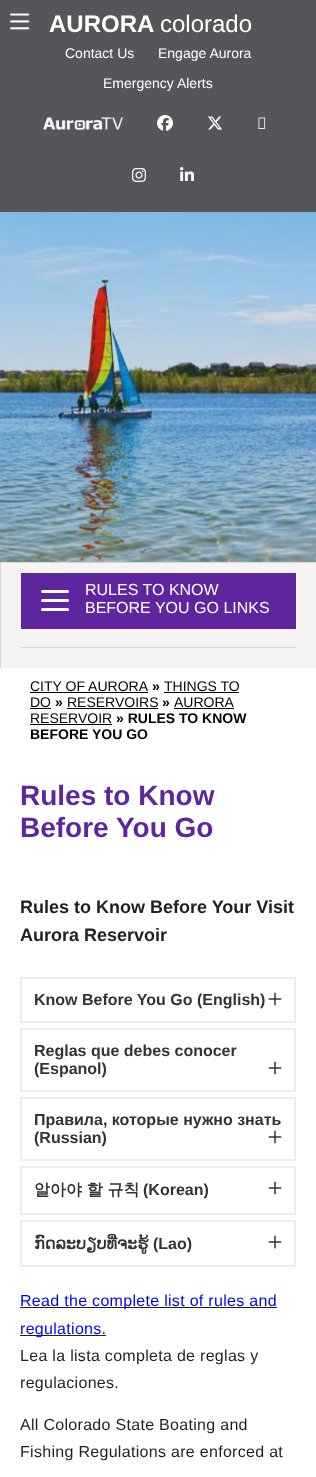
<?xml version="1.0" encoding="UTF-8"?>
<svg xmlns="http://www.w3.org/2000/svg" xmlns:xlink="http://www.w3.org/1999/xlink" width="316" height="1477">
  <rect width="100%" height="100%" fill="#ffffff" />
  <rect width="316" height="212" fill="#57545a" />
  <image x="10" y="13" width="20" height="17" xlink:href="image1.png" />
  <image x="43" y="116" width="80" height="15" xlink:href="image2.png" />
  <image x="157" y="115" width="16" height="16" xlink:href="image3.png" />
  <image x="208" y="116" width="15" height="14" xlink:href="image4.png" />
  <image x="258" y="117" width="8" height="12" xlink:href="image5.png" />
  <image x="132" y="168" width="14" height="14" xlink:href="image6.png" />
  <image x="180" y="167" width="14" height="14" xlink:href="image7.png" />
  <image x="0" y="212" width="316" height="350" xlink:href="image8.png" />
  <rect x="1" y="563" width="315" height="105" fill="#f5f4f2" />
  <rect y="562" width="316" height="1" fill="#d6d6d6" />
  <rect y="562" width="1" height="106" fill="#d6d6d6" />
  <rect x="21" y="647" width="275" height="1" fill="#d6d6d6" />
  <rect x="21" y="573" width="275" height="56" fill="#5f259f" />
  <rect x="41" y="590" width="28" height="3" rx="1.5" fill="#ffffff" />
  <rect x="41" y="599" width="28" height="3" rx="1.5" fill="#ffffff" />
  <rect x="41" y="608" width="28" height="3" rx="1.5" fill="#ffffff" />
  <rect x="30" y="692" width="118" height="1" fill="#000000" />
  <rect x="164" y="692" width="75" height="1" fill="#000000" />
  <rect x="30" y="708" width="21" height="1" fill="#000000" />
  <rect x="67" y="708" width="91" height="1" fill="#000000" />
  <rect x="174" y="708" width="60" height="1" fill="#000000" />
  <rect x="30" y="724" width="82" height="1" fill="#000000" />
  <rect x="21" y="978" width="274" height="44" fill="none" stroke="#eeeeee" stroke-width="2" />
  <image x="268" y="992" width="14" height="14" xlink:href="image9.png" />
  <rect x="21" y="1029" width="274" height="62" fill="none" stroke="#eeeeee" stroke-width="2" />
  <image x="268" y="1061" width="14" height="14" xlink:href="image9.png" />
  <rect x="21" y="1098" width="274" height="62" fill="none" stroke="#eeeeee" stroke-width="2" />
  <image x="268" y="1130" width="14" height="14" xlink:href="image9.png" />
  <rect x="21" y="1167" width="274" height="47" fill="none" stroke="#eeeeee" stroke-width="2" />
  <image x="268" y="1181" width="14" height="14" xlink:href="image9.png" />
  <rect x="21" y="1221" width="274" height="45" fill="none" stroke="#eeeeee" stroke-width="2" />
  <image x="268" y="1235" width="14" height="14" xlink:href="image9.png" />
  <rect x="20" y="1307" width="257" height="1" fill="#231f20" />
  <rect x="20" y="1335" width="86" height="1" fill="#231f20" />
  <text x="49" y="32" style="font-family: Liberation Sans; font-size: 24px; font-weight: bold; fill: #ffffff">AURORA</text>
  <text x="160" y="32" style="font-family: Liberation Sans; font-size: 24px; fill: #ffffff">colorado</text>
  <text x="65" y="58" style="font-family: Liberation Sans; font-size: 14px; fill: #ffffff">Contact Us</text>
  <text x="158" y="58" style="font-family: Liberation Sans; font-size: 14px; fill: #ffffff">Engage Aurora</text>
  <text x="103" y="88" style="font-family: Liberation Sans; font-size: 14px; fill: #ffffff">Emergency Alerts</text>
  <text x="85" y="595" style="font-family: Liberation Sans; font-size: 16px; fill: #ffffff">RULES TO KNOW</text>
  <text x="85" y="613" style="font-family: Liberation Sans; font-size: 16px; fill: #ffffff">BEFORE YOU GO LINKS</text>
  <text x="30" y="691" style="font-family: Liberation Sans; font-size: 14px; fill: #000000">CITY OF AURORA</text>
  <text x="152" y="691" style="font-family: Liberation Sans; font-size: 14px; font-weight: bold; fill: #000000">»</text>
  <text x="164" y="691" style="font-family: Liberation Sans; font-size: 14px; fill: #000000">THINGS TO</text>
  <text x="30" y="707" style="font-family: Liberation Sans; font-size: 14px; fill: #000000">DO</text>
  <text x="55" y="707" style="font-family: Liberation Sans; font-size: 14px; font-weight: bold; fill: #000000">»</text>
  <text x="67" y="707" style="font-family: Liberation Sans; font-size: 14px; fill: #000000">RESERVOIRS</text>
  <text x="162" y="707" style="font-family: Liberation Sans; font-size: 14px; font-weight: bold; fill: #000000">»</text>
  <text x="174" y="707" style="font-family: Liberation Sans; font-size: 14px; fill: #000000">AURORA</text>
  <text x="30" y="723" style="font-family: Liberation Sans; font-size: 14px; fill: #000000">RESERVOIR</text>
  <text x="116" y="723" style="font-family: Liberation Sans; font-size: 14px; font-weight: bold; fill: #000000">» RULES TO KNOW</text>
  <text x="30" y="739" style="font-family: Liberation Sans; font-size: 14px; font-weight: bold; fill: #000000">BEFORE YOU GO</text>
  <text x="20" y="805" style="font-family: Liberation Sans; font-size: 28px; font-weight: bold; fill: #5f259f">Rules to Know</text>
  <text x="20" y="837" style="font-family: Liberation Sans; font-size: 28px; font-weight: bold; fill: #5f259f">Before You Go</text>
  <text x="20" y="913" style="font-family: Liberation Sans; font-size: 18px; font-weight: bold; fill: #231f20">Rules to Know Before Your Visit</text>
  <text x="20" y="941" style="font-family: Liberation Sans; font-size: 18px; font-weight: bold; fill: #231f20">Aurora Reservoir</text>
  <text x="34" y="1005" style="font-family: Liberation Sans; font-size: 16px; font-weight: bold; fill: #333333">Know Before You Go (English)</text>
  <text x="34" y="1056" style="font-family: Liberation Sans; font-size: 16px; font-weight: bold; fill: #333333">Reglas que debes conocer</text>
  <text x="34" y="1074" style="font-family: Liberation Sans; font-size: 16px; font-weight: bold; fill: #333333">(Espanol)</text>
  <text x="34" y="1125" style="font-family: Liberation Sans; font-size: 16px; font-weight: bold; fill: #333333">Правила, которые нужно знать</text>
  <text x="34" y="1143" style="font-family: Liberation Sans; font-size: 16px; font-weight: bold; fill: #333333">(Russian)</text>
  <text x="34" y="1195" style="font-family: WenQuanYi Zen Hei; font-size: 16px; font-weight: bold; fill: #333333">알아야 할 규칙</text>
  <text x="143" y="1195" style="font-family: Liberation Sans; font-size: 16px; font-weight: bold; fill: #333333">(Korean)</text>
  <text x="34" y="1249" style="font-family: DejaVu Sans; font-size: 16px; font-weight: bold; fill: #333333">ກົດລະບຽບທີ່ຈະຮູ້</text>
  <text x="153" y="1249" style="font-family: Liberation Sans; font-size: 16px; font-weight: bold; fill: #333333">(Lao)</text>
  <text x="20" y="1306" style="font-family: Liberation Sans; font-size: 16px; letter-spacing: 0.3px; fill: #0000ff">Read the complete list of rules and</text>
  <text x="20" y="1334" style="font-family: Liberation Sans; font-size: 16px; letter-spacing: 0.3px; fill: #0000ff">regulations.</text>
  <text x="20" y="1361" style="font-family: Liberation Sans; font-size: 16px; letter-spacing: 0.3px; fill: #231f20">Lea la lista completa de reglas y</text>
  <text x="20" y="1388" style="font-family: Liberation Sans; font-size: 16px; letter-spacing: 0.3px; fill: #231f20">regulaciones.</text>
  <text x="20" y="1430" style="font-family: Liberation Sans; font-size: 16px; letter-spacing: 0.3px; fill: #231f20">All Colorado State Boating and</text>
  <text x="20" y="1457" style="font-family: Liberation Sans; font-size: 16px; letter-spacing: 0.3px; fill: #231f20">Fishing Regulations are enforced at</text>
</svg>
